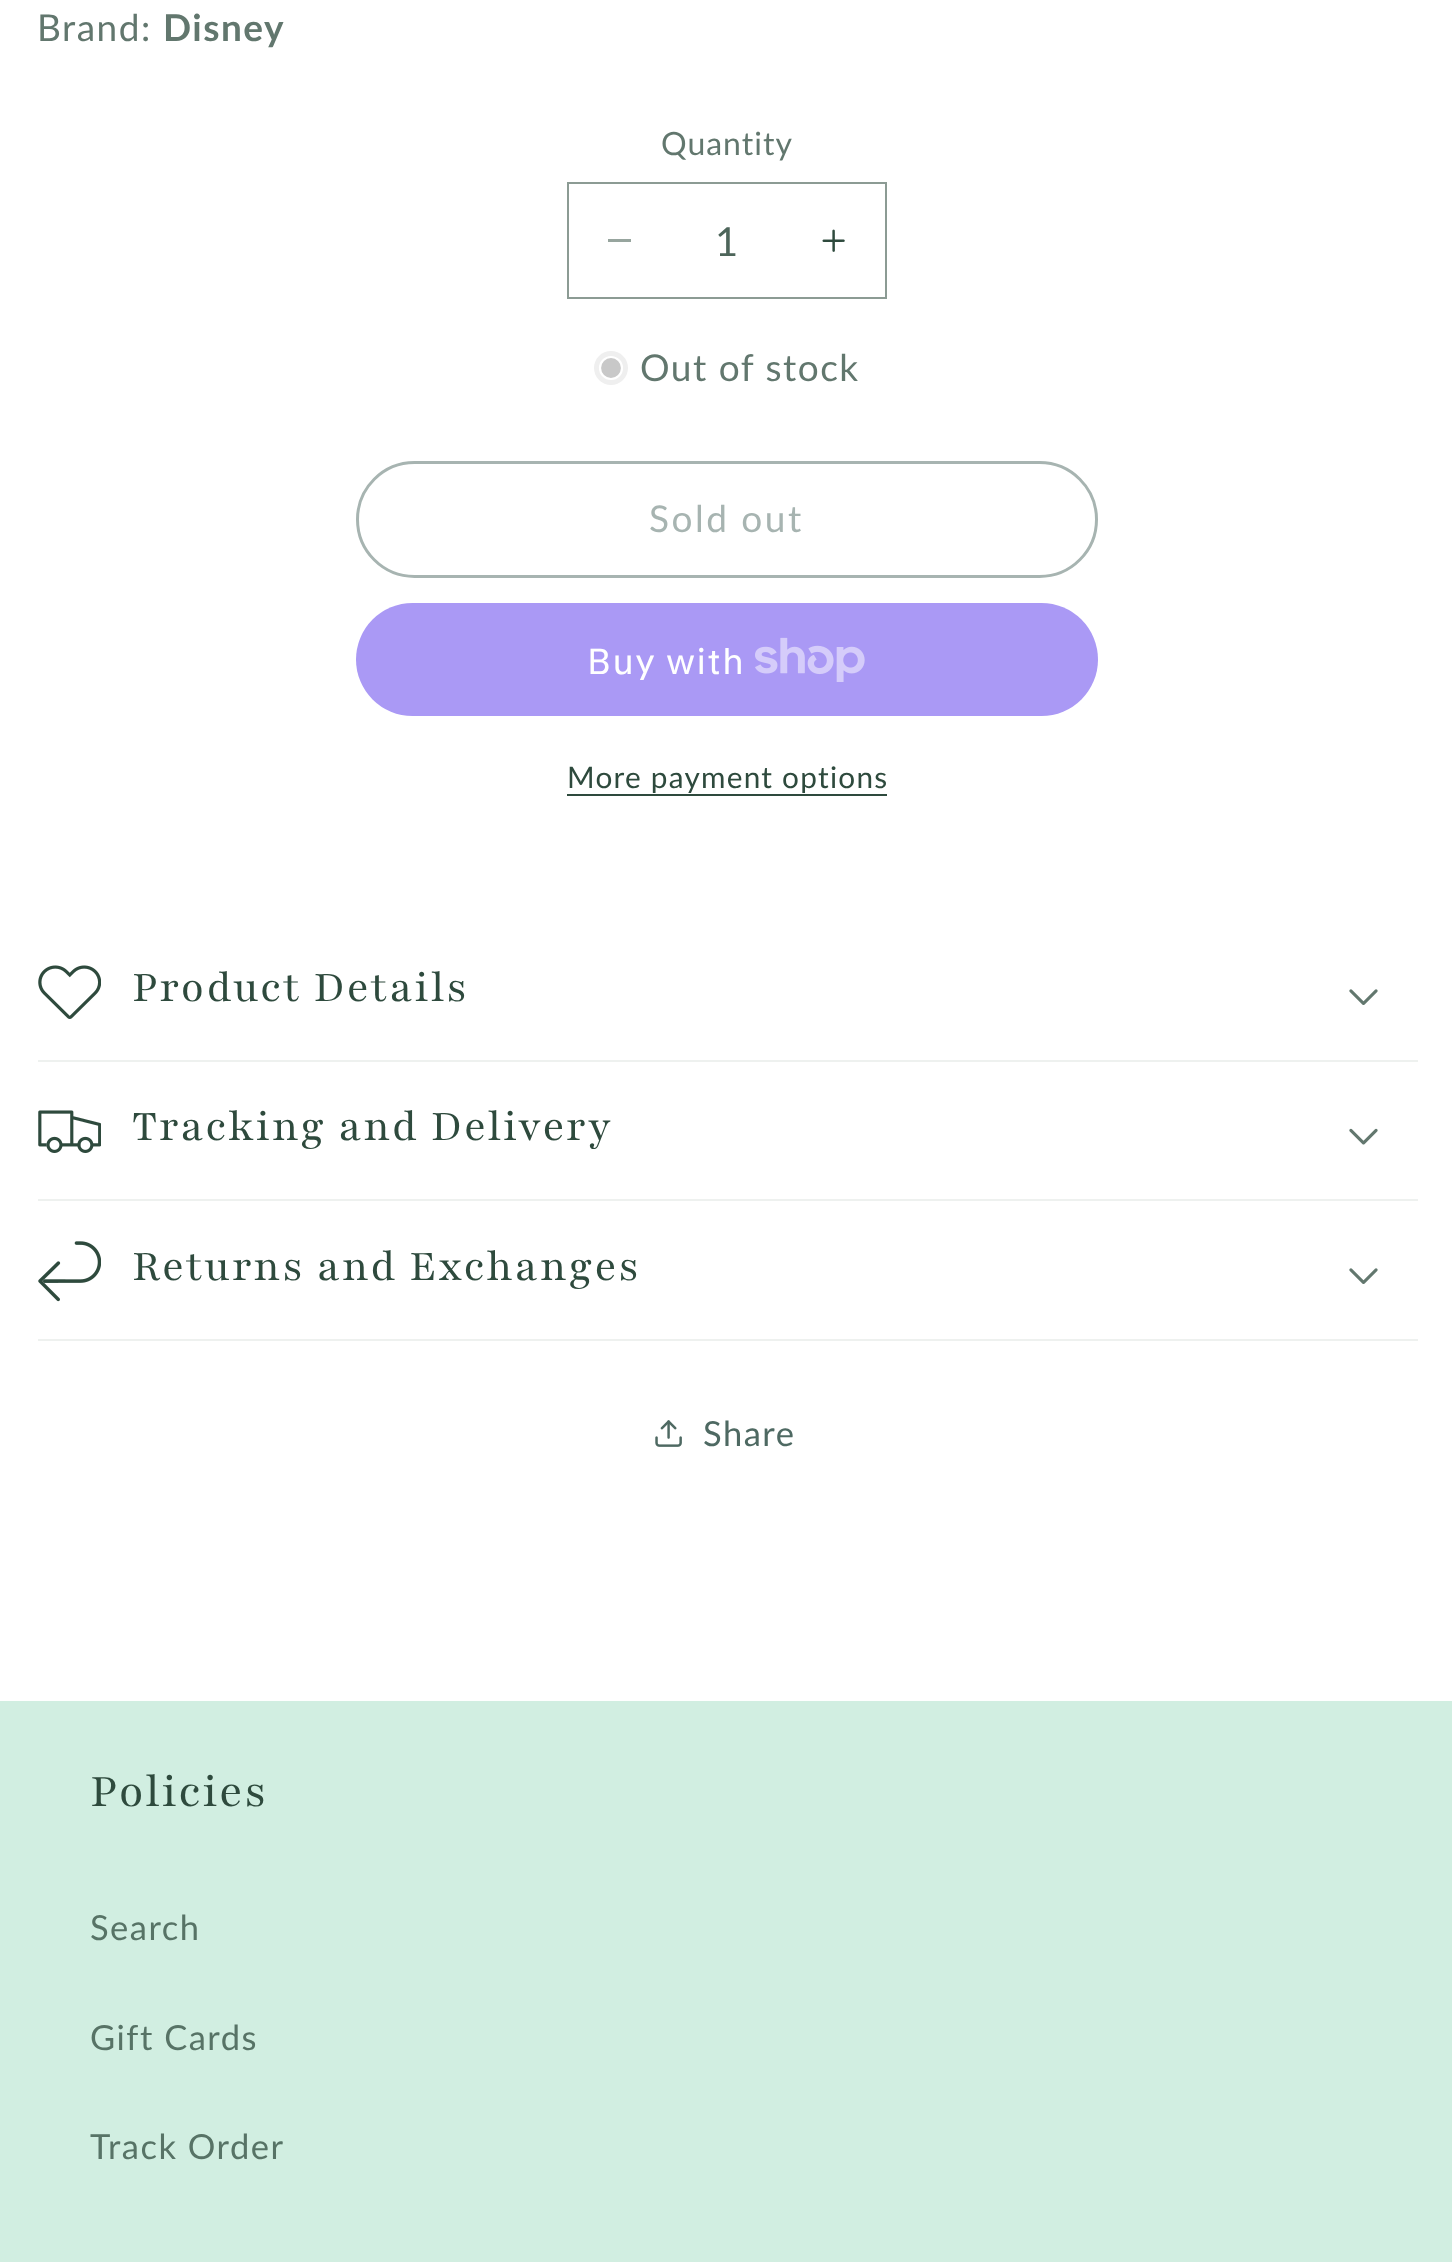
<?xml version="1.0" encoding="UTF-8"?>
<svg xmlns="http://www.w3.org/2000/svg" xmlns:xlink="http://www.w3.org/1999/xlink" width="1452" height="2262">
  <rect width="100%" height="100%" fill="#ffffff" />
  <rect x="608" y="239" width="23" height="3" fill="#97a59e" />
  <image x="822" y="229" width="23" height="23" xlink:href="image1.png" />
  <rect x="568" y="183" width="318" height="115" fill="none" stroke="#8c9b94" stroke-width="2" />
  <circle cx="611" cy="368" r="17" fill="#efefef" />
  <circle cx="611" cy="368" r="11" fill="#c8c8c8" stroke="#ffffff" stroke-width="2.2" />
  <rect x="357.5" y="462.5" width="739" height="114" rx="57" fill="none" stroke="#a7b4b1" stroke-width="3" />
  <rect x="356" y="603" width="742" height="113" rx="56.5" fill="#aa99f5" />
  <image x="755" y="637" width="110" height="45" xlink:href="image2.png" />
  <rect x="567" y="794" width="320" height="2" fill="#2e4a3d" />
  <rect x="38" y="1060" width="1380" height="2" fill="#eef1ef" />
  <image x="38" y="965" width="63" height="54" xlink:href="image3.png" />
  <image x="1349" y="989" width="29" height="16" xlink:href="image4.png" />
  <rect x="38" y="1199" width="1380" height="2" fill="#eef1ef" />
  <image x="38" y="1110" width="63" height="43" xlink:href="image5.png" />
  <image x="1349" y="1128" width="29" height="17" xlink:href="image6.png" />
  <rect x="38" y="1339" width="1380" height="2" fill="#eef1ef" />
  <image x="38" y="1241" width="63" height="61" xlink:href="image7.png" />
  <image x="1349" y="1268" width="29" height="16" xlink:href="image4.png" />
  <image x="655" y="1420" width="27" height="27" xlink:href="image8.png" />
  <rect y="1701" width="1452" height="561" fill="#d1eee1" />
  <text x="37" y="41" style="font-family: Lato; font-size: 37px; letter-spacing: 1.5px; fill: #62776e">Brand:</text>
  <text x="163" y="41" style="font-family: Lato; font-size: 37px; font-weight: bold; letter-spacing: 1.5px; fill: #62776e">Disney</text>
  <text x="661" y="155" style="font-family: Lato; font-size: 32px; letter-spacing: 1px; fill: #62776e">Quantity</text>
  <text x="715" y="256" style="font-family: Lato; font-size: 40px; fill: #4d655a">1</text>
  <text x="640" y="381" style="font-family: Lato; font-size: 37px; letter-spacing: 1.5px; fill: #62776e">Out of stock</text>
  <text x="649" y="532" style="font-family: Lato; font-size: 37px; letter-spacing: 2.5px; fill: #a7b4b1">Sold out</text>
  <text x="587" y="674" style="font-family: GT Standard; font-size: 36px; letter-spacing: 1.5px; fill: #ffffff">Buy with</text>
  <text x="567" y="788" style="font-family: Lato; font-size: 29.75px; letter-spacing: 1.25px; fill: #2e4a3d">More payment options</text>
  <text x="132" y="1001" style="font-family: Playfair; font-size: 47.25px; letter-spacing: 1.9px; fill: #2e4a3d">Product Details</text>
  <text x="132" y="1140" style="font-family: Playfair; font-size: 47.25px; letter-spacing: 1.9px; fill: #2e4a3d">Tracking and Delivery</text>
  <text x="132" y="1280" style="font-family: Playfair; font-size: 47.25px; letter-spacing: 1.9px; fill: #2e4a3d">Returns and Exchanges</text>
  <text x="703" y="1446" style="font-family: Lato; font-size: 34.5px; letter-spacing: 1.5px; fill: #4e6962">Share</text>
  <text x="90" y="1806" style="font-family: 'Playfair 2'; font-size: 50.5px; letter-spacing: 1.9px; fill: #2e4a3d">Policies</text>
  <text x="90" y="1940" style="font-family: Lato; font-size: 34.5px; letter-spacing: 1.5px; fill: #577366">Search</text>
  <text x="90" y="2050" style="font-family: Lato; font-size: 34.5px; letter-spacing: 1.5px; fill: #577366">Gift Cards</text>
  <text x="90" y="2159" style="font-family: Lato; font-size: 34.5px; letter-spacing: 1.5px; fill: #577366">Track Order</text>
</svg>
